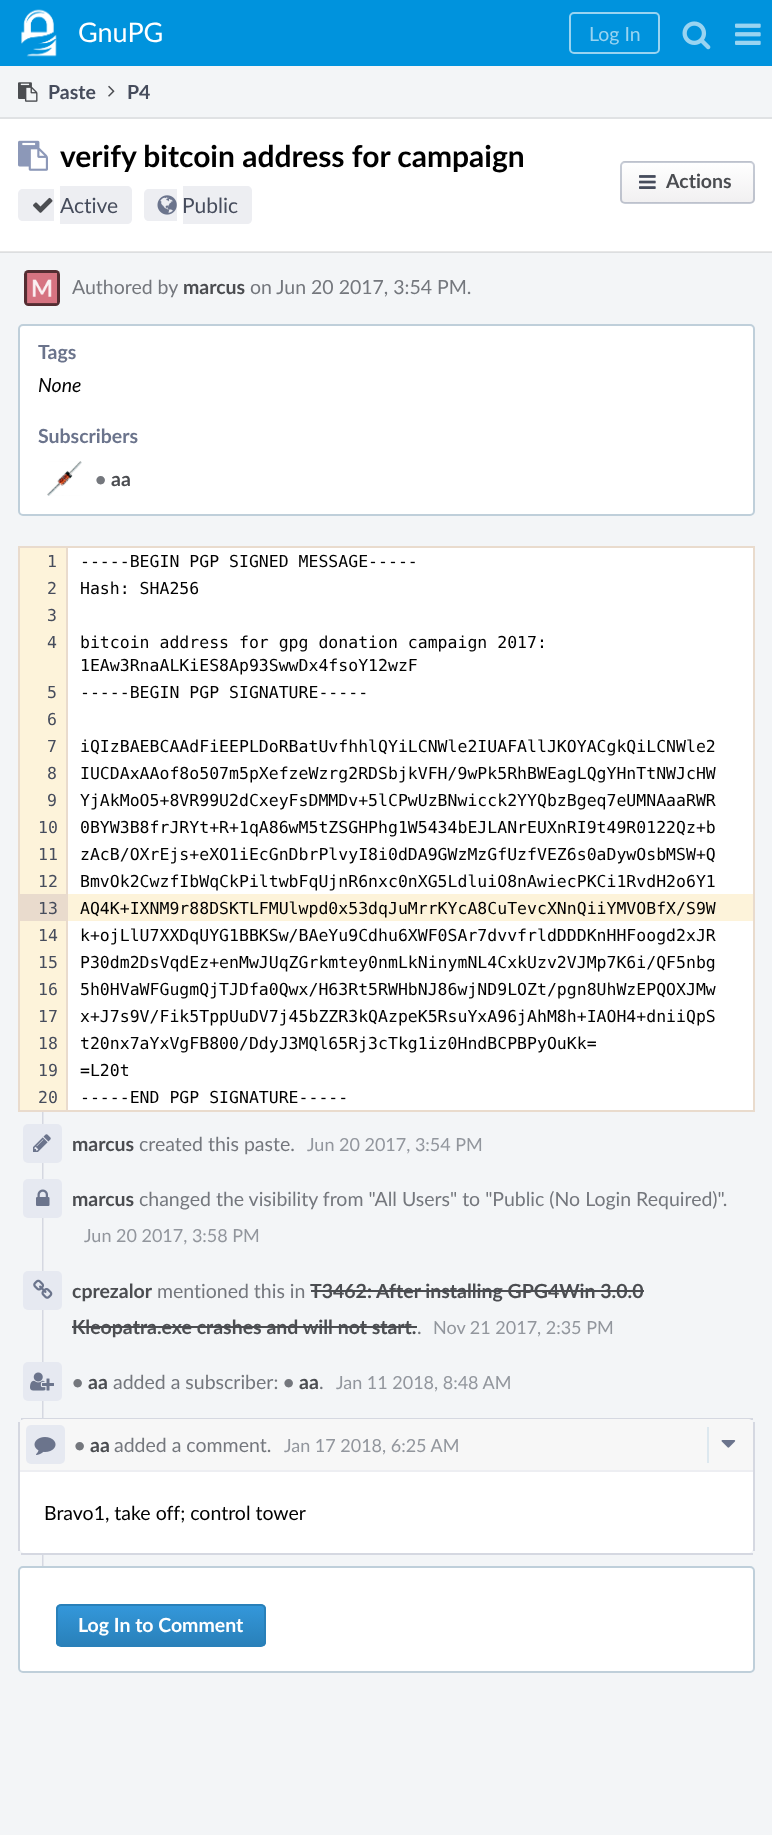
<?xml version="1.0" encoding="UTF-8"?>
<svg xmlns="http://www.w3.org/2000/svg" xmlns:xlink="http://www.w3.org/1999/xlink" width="772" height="1835">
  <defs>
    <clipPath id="clip1"><rect x="620" y="161" width="135" height="43" rx="5" /></clipPath>
    <linearGradient id="g1" gradientUnits="userSpaceOnUse" x1="687" y1="122" x2="687" y2="162"><stop offset="0" stop-color="#ffffff" /><stop offset="1" stop-color="#f1f0f1" /></linearGradient>
    <linearGradient id="g2" gradientUnits="userSpaceOnUse" x1="687" y1="162" x2="687" y2="203"><stop offset="0" stop-color="#ffffff" /><stop offset="1" stop-color="#f1f0f1" /></linearGradient>
    <clipPath id="clip2"><rect x="56" y="1604" width="210" height="43" rx="5" /></clipPath>
    <linearGradient id="g3" gradientUnits="userSpaceOnUse" x1="161" y1="1605" x2="161" y2="1646"><stop offset="0" stop-color="#3498db" /><stop offset="1" stop-color="#2980b9" /></linearGradient>
  </defs>
  <rect width="100%" height="100%" fill="#f3f5f7" />
  <rect y="252" width="772" height="1" fill="#dcdee0" />
  <rect width="772" height="66" fill="#0093dd" />
  <image x="21" y="9" width="36" height="48" xlink:href="image1.png" />
  <rect x="570" y="13" width="89" height="40" rx="4" fill="none" stroke="#99d4f1" stroke-width="2" />
  <image x="682" y="21" width="29" height="29" xlink:href="image2.png" />
  <image x="735" y="23" width="26" height="22" xlink:href="image3.png" />
  <rect y="117" width="772" height="2" fill="#e0e2e4" />
  <image x="18" y="82" width="20" height="20" xlink:href="image4.png" />
  <image x="108" y="85" width="7" height="12" xlink:href="image5.png" />
  <rect y="119" width="772" height="132" fill="#ffffff" />
  <rect y="251" width="772" height="1" fill="#e7e7e7" />
  <image x="18" y="140" width="30" height="31" xlink:href="image6.png" />
  <path d="M 23 189 h 31 v 32 h -31 c -3 0 -5 -2 -5 -5 v -22 c 0 -3 2 -5 5 -5 z" fill="#edeef2" />
  <path d="M 60 186 h 67 c 3 0 5 2 5 5 v 28 c 0 3 -2 5 -5 5 h -67 z" fill="#edeef2" />
  <image x="33" y="197" width="20" height="16" xlink:href="image7.png" />
  <path d="M 149 189 h 28 v 32 h -28 c -3 0 -5 -2 -5 -5 v -22 c 0 -3 2 -5 5 -5 z" fill="#edeef2" />
  <path d="M 183 186 h 64 c 3 0 5 2 5 5 v 28 c 0 3 -2 5 -5 5 h -64 z" fill="#edeef2" />
  <image x="157" y="195" width="20" height="20" xlink:href="image8.png" />
  <g clip-path="url(#clip1)">
    <rect x="620" y="161" width="135" height="1" fill="url(#g1)" />
    <rect x="620" y="162" width="135" height="41" fill="url(#g2)" />
  </g>
  <rect x="621" y="162" width="133" height="41" rx="4" fill="none" stroke="#475778" stroke-opacity="0.3" stroke-width="2" />
  <image x="639" y="175" width="17" height="14" xlink:href="image9.png" />
  <image x="23" y="270" width="37" height="36" xlink:href="image10.png" />
  <rect x="19" y="325" width="735" height="190" rx="4" fill="#ffffff" stroke="#bfcfda" stroke-width="2" />
  <image x="47" y="461" width="35" height="35" xlink:href="image11.png" />
  <rect x="19" y="547" width="735" height="564" fill="none" stroke="#e9dbcd" stroke-width="2" />
  <rect x="20" y="548" width="46" height="346" fill="#fdf3da" />
  <rect x="68" y="548" width="685" height="346" fill="#ffffff" />
  <rect x="20" y="894" width="48" height="27" fill="#e9dbcd" />
  <rect x="66" y="548" width="2" height="348" fill="#e9dbcd" />
  <rect x="68" y="894" width="685" height="27" fill="#fdf3da" />
  <rect x="20" y="921" width="46" height="189" fill="#fdf3da" />
  <rect x="68" y="921" width="685" height="189" fill="#ffffff" />
  <rect x="66" y="921" width="2" height="189" fill="#e9dbcd" />
  <image x="42" y="1112" width="2" height="454" xlink:href="image12.png" />
  <rect x="23" y="1124" width="39" height="39" rx="5" fill="#e6e9f1" />
  <image x="33" y="1134" width="18" height="18" xlink:href="image13.png" />
  <rect x="23" y="1179" width="39" height="39" rx="5" fill="#e6e9f1" />
  <image x="36" y="1189" width="14" height="17" xlink:href="image14.png" />
  <rect x="23" y="1271" width="39" height="39" rx="5" fill="#e6e9f1" />
  <image x="33" y="1279" width="20" height="20" xlink:href="image15.png" />
  <rect x="311" y="1290" width="333" height="2" fill="#4b4d51" />
  <rect x="72" y="1326" width="345" height="2" fill="#4b4d51" />
  <rect x="23" y="1362" width="39" height="39" rx="5" fill="#e6e9f1" />
  <image x="30" y="1372" width="24" height="19" xlink:href="image16.png" />
  <rect x="21" y="1418" width="732" height="2" fill="#d5d8e1" />
  <rect x="21" y="1553" width="732" height="2" fill="#d5d8e1" />
  <rect x="753" y="1422" width="2" height="129" fill="#d5d8e1" />
  <rect x="18" y="1422" width="2" height="129" fill="#d5d8e1" />
  <path d="M 25 1419 h 723 c 3 0 5 2 5 5 v 46 h -733 v -46 c 0 -3 2 -5 5 -5 z" fill="#f7f7f7" />
  <rect x="26" y="1425" width="39" height="39" rx="5" fill="#e6e9f1" />
  <image x="34" y="1437" width="22" height="18" xlink:href="image17.png" />
  <rect x="707" y="1427" width="2" height="36" fill="#dde8ef" />
  <image x="721" y="1440" width="15" height="8" xlink:href="image18.png" />
  <path d="M 20 1470 h 733 v 78 c 0 3 -2 5 -5 5 h -723 c -3 0 -5 -2 -5 -5 z" fill="#ffffff" />
  <rect x="20" y="1470" width="733" height="2" fill="#edeef2" />
  <rect x="19" y="1567" width="735" height="105" rx="4" fill="#ffffff" stroke="#bfcfda" stroke-width="2" />
  <g clip-path="url(#clip2)">
    <rect x="56" y="1605" width="210" height="41" fill="url(#g3)" />
  </g>
  <rect x="57" y="1605" width="208" height="41" rx="4" fill="none" stroke="#2980b9" stroke-width="2" />
  <text x="78" y="42" style="font-family: Lato; font-size: 27px; fill: #ffffff">GnuPG</text>
  <text x="589" y="41" style="font-family: Lato; font-size: 19.5px; fill: #99d4f1">Log In</text>
  <text x="48" y="99" style="font-family: Lato; font-size: 19.5px; font-weight: bold; fill: #464c5c">Paste</text>
  <text x="127" y="99" style="font-family: Lato; font-size: 19.5px; font-weight: bold; fill: #464c5c">P4</text>
  <text x="60" y="167" style="font-family: Lato; font-size: 30px; font-weight: bold; fill: #000000">verify bitcoin address for campaign</text>
  <text x="60" y="213" style="font-family: Lato; font-size: 21px; fill: #464c5c">Active</text>
  <text x="182" y="213" style="font-family: Lato; font-size: 21px; fill: #464c5c">Public</text>
  <text x="666" y="188" style="font-family: Lato; font-size: 19.5px; font-weight: bold; fill: #4b4d51">Actions</text>
  <text x="72" y="294" style="font-family: Lato; font-size: 19.5px; fill: #74777d">Authored by</text>
  <text x="183" y="294" style="font-family: Lato; font-size: 19.5px; font-weight: bold; fill: #4b4d51">marcus</text>
  <text x="250" y="294" style="font-family: Lato; font-size: 19.5px; fill: #74777d">on Jun 20 2017, 3:54 PM.</text>
  <text x="38" y="359" style="font-family: Lato; font-size: 19.5px; font-weight: bold; fill: #6b748c">Tags</text>
  <text x="38" y="392" style="font-family: Lato; font-size: 19.5px; font-style: italic; fill: #000000">None</text>
  <text x="38" y="443" style="font-family: Lato; font-size: 19.5px; font-weight: bold; fill: #6b748c">Subscribers</text>
  <text x="95" y="486" style="font-family: Lato; font-size: 19.5px; font-weight: bold; fill: #74777d">•</text>
  <text x="111" y="486" style="font-family: Lato; font-size: 19.5px; font-weight: bold; fill: #4b4d51">aa</text>
  <text x="47" y="567" style="font-family: DejaVu Sans Mono; font-size: 16.5px; fill: #464c5c">1</text>
  <text x="80" y="567" style="font-family: DejaVu Sans Mono; font-size: 16.5px; fill: #000000">-----BEGIN PGP SIGNED MESSAGE-----</text>
  <text x="47" y="594" style="font-family: DejaVu Sans Mono; font-size: 16.5px; fill: #464c5c">2</text>
  <text x="80" y="594" style="font-family: DejaVu Sans Mono; font-size: 16.5px; fill: #000000">Hash: SHA256</text>
  <text x="47" y="621" style="font-family: DejaVu Sans Mono; font-size: 16.5px; fill: #464c5c">3</text>
  <text x="47" y="648" style="font-family: DejaVu Sans Mono; font-size: 16.5px; fill: #464c5c">4</text>
  <text x="80" y="648" style="font-family: DejaVu Sans Mono; font-size: 16.5px; fill: #000000">bitcoin address for gpg donation campaign 2017:</text>
  <text x="80" y="671" style="font-family: DejaVu Sans Mono; font-size: 16.5px; fill: #000000">1EAw3RnaALKiES8Ap93SwwDx4fsoY12wzF</text>
  <text x="47" y="698" style="font-family: DejaVu Sans Mono; font-size: 16.5px; fill: #464c5c">5</text>
  <text x="80" y="698" style="font-family: DejaVu Sans Mono; font-size: 16.5px; fill: #000000">-----BEGIN PGP SIGNATURE-----</text>
  <text x="47" y="725" style="font-family: DejaVu Sans Mono; font-size: 16.5px; fill: #464c5c">6</text>
  <text x="47" y="752" style="font-family: DejaVu Sans Mono; font-size: 16.5px; fill: #464c5c">7</text>
  <text x="80" y="752" style="font-family: DejaVu Sans Mono; font-size: 16.5px; fill: #000000">iQIzBAEBCAAdFiEEPLDoRBatUvfhhlQYiLCNWle2IUAFAllJKOYACgkQiLCNWle2</text>
  <text x="47" y="779" style="font-family: DejaVu Sans Mono; font-size: 16.5px; fill: #464c5c">8</text>
  <text x="80" y="779" style="font-family: DejaVu Sans Mono; font-size: 16.5px; fill: #000000">IUCDAxAAof8o507m5pXefzeWzrg2RDSbjkVFH/9wPk5RhBWEagLQgYHnTtNWJcHW</text>
  <text x="47" y="806" style="font-family: DejaVu Sans Mono; font-size: 16.5px; fill: #464c5c">9</text>
  <text x="80" y="806" style="font-family: DejaVu Sans Mono; font-size: 16.5px; fill: #000000">YjAkMoO5+8VR99U2dCxeyFsDMMDv+5lCPwUzBNwicck2YYQbzBgeq7eUMNAaaRWR</text>
  <text x="38" y="833" style="font-family: DejaVu Sans Mono; font-size: 16.5px; fill: #464c5c">10</text>
  <text x="80" y="833" style="font-family: DejaVu Sans Mono; font-size: 16.5px; fill: #000000">0BYW3B8frJRYt+R+1qA86wM5tZSGHPhg1W5434bEJLANrEUXnRI9t49R0122Qz+b</text>
  <text x="38" y="860" style="font-family: DejaVu Sans Mono; font-size: 16.5px; fill: #464c5c">11</text>
  <text x="80" y="860" style="font-family: DejaVu Sans Mono; font-size: 16.5px; fill: #000000">zAcB/OXrEjs+eXO1iEcGnDbrPlvyI8i0dDA9GWzMzGfUzfVEZ6s0aDywOsbMSW+Q</text>
  <text x="38" y="887" style="font-family: DejaVu Sans Mono; font-size: 16.5px; fill: #464c5c">12</text>
  <text x="80" y="887" style="font-family: DejaVu Sans Mono; font-size: 16.5px; fill: #000000">BmvOk2CwzfIbWqCkPiltwbFqUjnR6nxc0nXG5LdluiO8nAwiecPKCi1RvdH2o6Y1</text>
  <text x="38" y="914" style="font-family: DejaVu Sans Mono; font-size: 16.5px; fill: #464c5c">13</text>
  <text x="80" y="914" style="font-family: DejaVu Sans Mono; font-size: 16.5px; fill: #000000">AQ4K+IXNM9r88DSKTLFMUlwpd0x53dqJuMrrKYcA8CuTevcXNnQiiYMVOBfX/S9W</text>
  <text x="38" y="941" style="font-family: DejaVu Sans Mono; font-size: 16.5px; fill: #464c5c">14</text>
  <text x="80" y="941" style="font-family: DejaVu Sans Mono; font-size: 16.5px; fill: #000000">k+ojLlU7XXDqUYG1BBKSw/BAeYu9Cdhu6XWF0SAr7dvvfrldDDDKnHHFoogd2xJR</text>
  <text x="38" y="968" style="font-family: DejaVu Sans Mono; font-size: 16.5px; fill: #464c5c">15</text>
  <text x="80" y="968" style="font-family: DejaVu Sans Mono; font-size: 16.5px; fill: #000000">P30dm2DsVqdEz+enMwJUqZGrkmtey0nmLkNinymNL4CxkUzv2VJMp7K6i/QF5nbg</text>
  <text x="38" y="995" style="font-family: DejaVu Sans Mono; font-size: 16.5px; fill: #464c5c">16</text>
  <text x="80" y="995" style="font-family: DejaVu Sans Mono; font-size: 16.5px; fill: #000000">5h0HVaWFGugmQjTJDfa0Qwx/H63Rt5RWHbNJ86wjND9LOZt/pgn8UhWzEPQOXJMw</text>
  <text x="38" y="1022" style="font-family: DejaVu Sans Mono; font-size: 16.5px; fill: #464c5c">17</text>
  <text x="80" y="1022" style="font-family: DejaVu Sans Mono; font-size: 16.5px; fill: #000000">x+J7s9V/Fik5TppUuDV7j45bZZR3kQAzpeK5RsuYxA96jAhM8h+IAOH4+dniiQpS</text>
  <text x="38" y="1049" style="font-family: DejaVu Sans Mono; font-size: 16.5px; fill: #464c5c">18</text>
  <text x="80" y="1049" style="font-family: DejaVu Sans Mono; font-size: 16.5px; fill: #000000">t20nx7aYxVgFB800/DdyJ3MQl65Rj3cTkg1iz0HndBCPBPyOuKk=</text>
  <text x="38" y="1076" style="font-family: DejaVu Sans Mono; font-size: 16.5px; fill: #464c5c">19</text>
  <text x="80" y="1076" style="font-family: DejaVu Sans Mono; font-size: 16.5px; fill: #000000">=L20t</text>
  <text x="38" y="1103" style="font-family: DejaVu Sans Mono; font-size: 16.5px; fill: #464c5c">20</text>
  <text x="80" y="1103" style="font-family: DejaVu Sans Mono; font-size: 16.5px; fill: #000000">-----END PGP SIGNATURE-----</text>
  <text x="72" y="1151" style="font-family: Lato; font-size: 19.5px; font-weight: bold; fill: #4b4d51">marcus</text>
  <text x="139" y="1151" style="font-family: Lato; font-size: 19.5px; fill: #74777d">created this paste.</text>
  <text x="307" y="1151" style="font-family: Lato; font-size: 18px; fill: #92969d">Jun 20 2017, 3:54 PM</text>
  <text x="72" y="1206" style="font-family: Lato; font-size: 19.5px; font-weight: bold; fill: #4b4d51">marcus</text>
  <text x="139" y="1206" style="font-family: Lato; font-size: 19.5px; fill: #74777d">changed the visibility from "All Users" to "Public (No Login Required)".</text>
  <text x="84" y="1242" style="font-family: Lato; font-size: 18px; fill: #92969d">Jun 20 2017, 3:58 PM</text>
  <text x="72" y="1298" style="font-family: Lato; font-size: 19.5px; font-weight: bold; fill: #4b4d51">cprezalor</text>
  <text x="157" y="1298" style="font-family: Lato; font-size: 19.5px; fill: #74777d">mentioned this in</text>
  <text x="310" y="1298" style="font-family: Lato; font-size: 19.5px; font-weight: bold; fill: #4b4d51">T3462: After installing GPG4Win 3.0.0</text>
  <text x="72" y="1334" style="font-family: Lato; font-size: 19.5px; font-weight: bold; fill: #4b4d51">Kleopatra.exe crashes and will not start.</text>
  <text x="417" y="1334" style="font-family: Lato; font-size: 19.5px; fill: #74777d">.</text>
  <text x="433" y="1334" style="font-family: Lato; font-size: 18px; fill: #92969d">Nov 21 2017, 2:35 PM</text>
  <text x="72" y="1389" style="font-family: Lato; font-size: 19.5px; font-weight: bold; fill: #74777d">•</text>
  <text x="88" y="1389" style="font-family: Lato; font-size: 19.5px; font-weight: bold; fill: #4b4d51">aa</text>
  <text x="113" y="1389" style="font-family: Lato; font-size: 19.5px; fill: #74777d">added a subscriber:</text>
  <text x="283" y="1389" style="font-family: Lato; font-size: 19.5px; font-weight: bold; fill: #74777d">•</text>
  <text x="299" y="1389" style="font-family: Lato; font-size: 19.5px; font-weight: bold; fill: #4b4d51">aa</text>
  <text x="319" y="1389" style="font-family: Lato; font-size: 19.5px; fill: #74777d">.</text>
  <text x="336" y="1389" style="font-family: Lato; font-size: 18px; fill: #92969d">Jan 11 2018, 8:48 AM</text>
  <text x="74" y="1452" style="font-family: Lato; font-size: 19.5px; font-weight: bold; fill: #74777d">•</text>
  <text x="90" y="1452" style="font-family: Lato; font-size: 19.5px; font-weight: bold; fill: #4b4d51">aa</text>
  <text x="114" y="1452" style="font-family: Lato; font-size: 19.5px; fill: #74777d">added a comment.</text>
  <text x="284" y="1452" style="font-family: Lato; font-size: 18px; fill: #92969d">Jan 17 2018, 6:25 AM</text>
  <text x="44" y="1520" style="font-family: Lato; font-size: 19.5px; fill: #000000">Bravo1, take off; control tower</text>
  <text x="78" y="1632" style="font-family: Lato; font-size: 19.5px; font-weight: bold; fill: #ffffff">Log In to Comment</text>
</svg>
